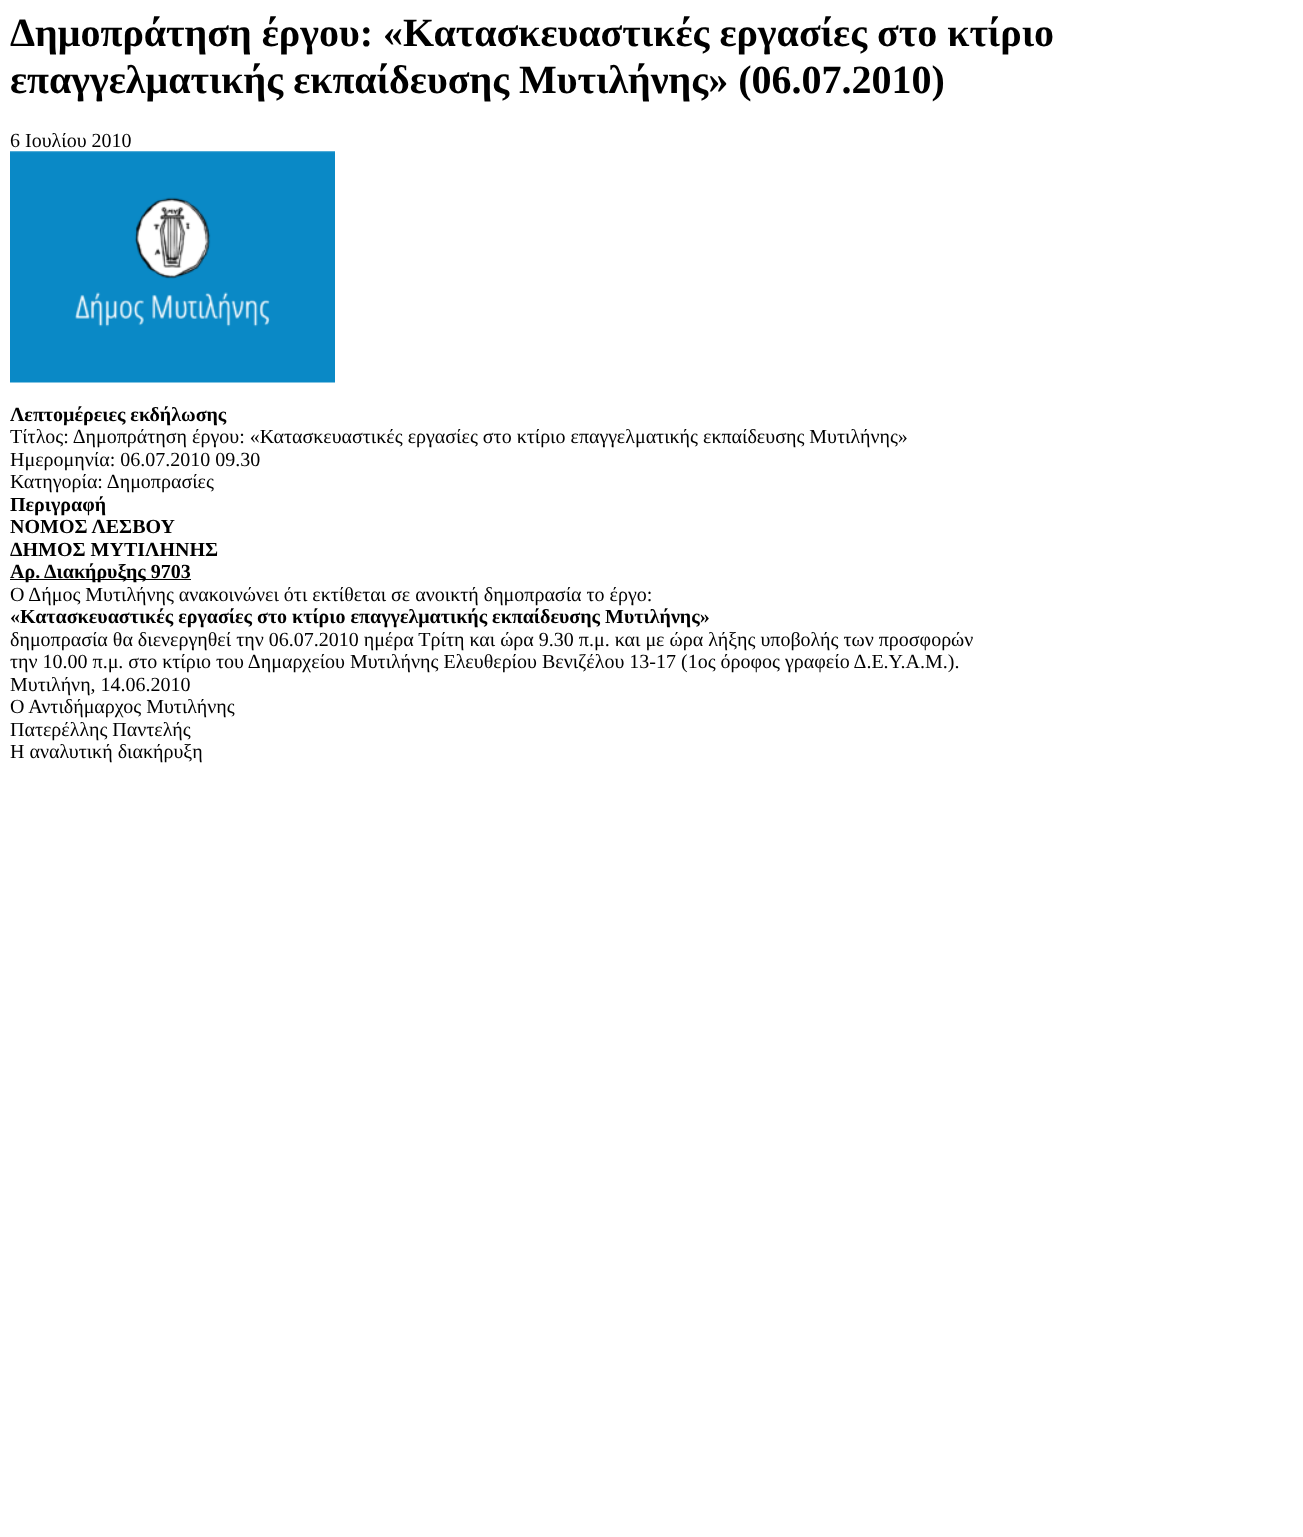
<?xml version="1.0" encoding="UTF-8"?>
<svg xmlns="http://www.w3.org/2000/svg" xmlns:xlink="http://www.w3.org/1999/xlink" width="1303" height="1537">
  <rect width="100%" height="100%" fill="#ffffff" />
  <image x="10" y="151" width="325" height="232" xlink:href="image1.png" />
  <rect x="10" y="579" width="181" height="1" fill="#000000" />
  <text x="10" y="46" style="font-family: Liberation Serif; font-size: 40px; font-weight: bold; fill: #000000">Δημοπράτηση έργου: «Κατασκευαστικές εργασίες στο κτίριο</text>
  <text x="10" y="93" style="font-family: Liberation Serif; font-size: 40px; font-weight: bold; fill: #000000">επαγγελματικής εκπαίδευσης Μυτιλήνης» (06.07.2010)</text>
  <text x="10" y="147" style="font-family: Liberation Serif; font-size: 20px; fill: #000000">6 Ιουλίου 2010</text>
  <text x="10" y="421" style="font-family: Liberation Serif; font-size: 20px; font-weight: bold; fill: #000000">Λεπτομέρειες εκδήλωσης</text>
  <text x="10" y="443" style="font-family: Liberation Serif; font-size: 20px; fill: #000000">Τίτλος: Δημοπράτηση έργου: «Κατασκευαστικές εργασίες στο κτίριο επαγγελματικής εκπαίδευσης Μυτιλήνης»</text>
  <text x="10" y="466" style="font-family: Liberation Serif; font-size: 20px; fill: #000000">Ημερομηνία: 06.07.2010 09.30</text>
  <text x="10" y="488" style="font-family: Liberation Serif; font-size: 20px; fill: #000000">Κατηγορία: Δημοπρασίες</text>
  <text x="10" y="511" style="font-family: Liberation Serif; font-size: 20px; font-weight: bold; fill: #000000">Περιγραφή</text>
  <text x="10" y="533" style="font-family: Liberation Serif; font-size: 20px; font-weight: bold; fill: #000000">ΝΟΜΟΣ ΛΕΣΒΟΥ</text>
  <text x="10" y="556" style="font-family: Liberation Serif; font-size: 20px; font-weight: bold; fill: #000000">ΔΗΜΟΣ ΜΥΤΙΛΗΝΗΣ</text>
  <text x="10" y="578" style="font-family: Liberation Serif; font-size: 20px; font-weight: bold; fill: #000000">Αρ. Διακήρυξης 9703</text>
  <text x="10" y="601" style="font-family: Liberation Serif; font-size: 20px; fill: #000000">Ο Δήμος Μυτιλήνης ανακοινώνει ότι εκτίθεται σε ανοικτή δημοπρασία το έργο:</text>
  <text x="10" y="623" style="font-family: Liberation Serif; font-size: 20px; font-weight: bold; fill: #000000">«Κατασκευαστικές εργασίες στο κτίριο επαγγελματικής εκπαίδευσης Μυτιλήνης»</text>
  <text x="10" y="646" style="font-family: Liberation Serif; font-size: 20px; fill: #000000">δημοπρασία θα διενεργηθεί την 06.07.2010 ημέρα Τρίτη και ώρα 9.30 π.μ. και με ώρα λήξης υποβολής των προσφορών</text>
  <text x="10" y="668" style="font-family: Liberation Serif; font-size: 20px; fill: #000000">την 10.00 π.μ. στο κτίριο του Δημαρχείου Μυτιλήνης Ελευθερίου Βενιζέλου 13-17 (1ος όροφος γραφείο Δ.Ε.Υ.Α.Μ.).</text>
  <text x="10" y="691" style="font-family: Liberation Serif; font-size: 20px; fill: #000000">Μυτιλήνη, 14.06.2010</text>
  <text x="10" y="713" style="font-family: Liberation Serif; font-size: 20px; fill: #000000">Ο Αντιδήμαρχος Μυτιλήνης</text>
  <text x="10" y="736" style="font-family: Liberation Serif; font-size: 20px; fill: #000000">Πατερέλλης Παντελής</text>
  <text x="10" y="758" style="font-family: Liberation Serif; font-size: 20px; fill: #000000">Η αναλυτική διακήρυξη</text>
</svg>
